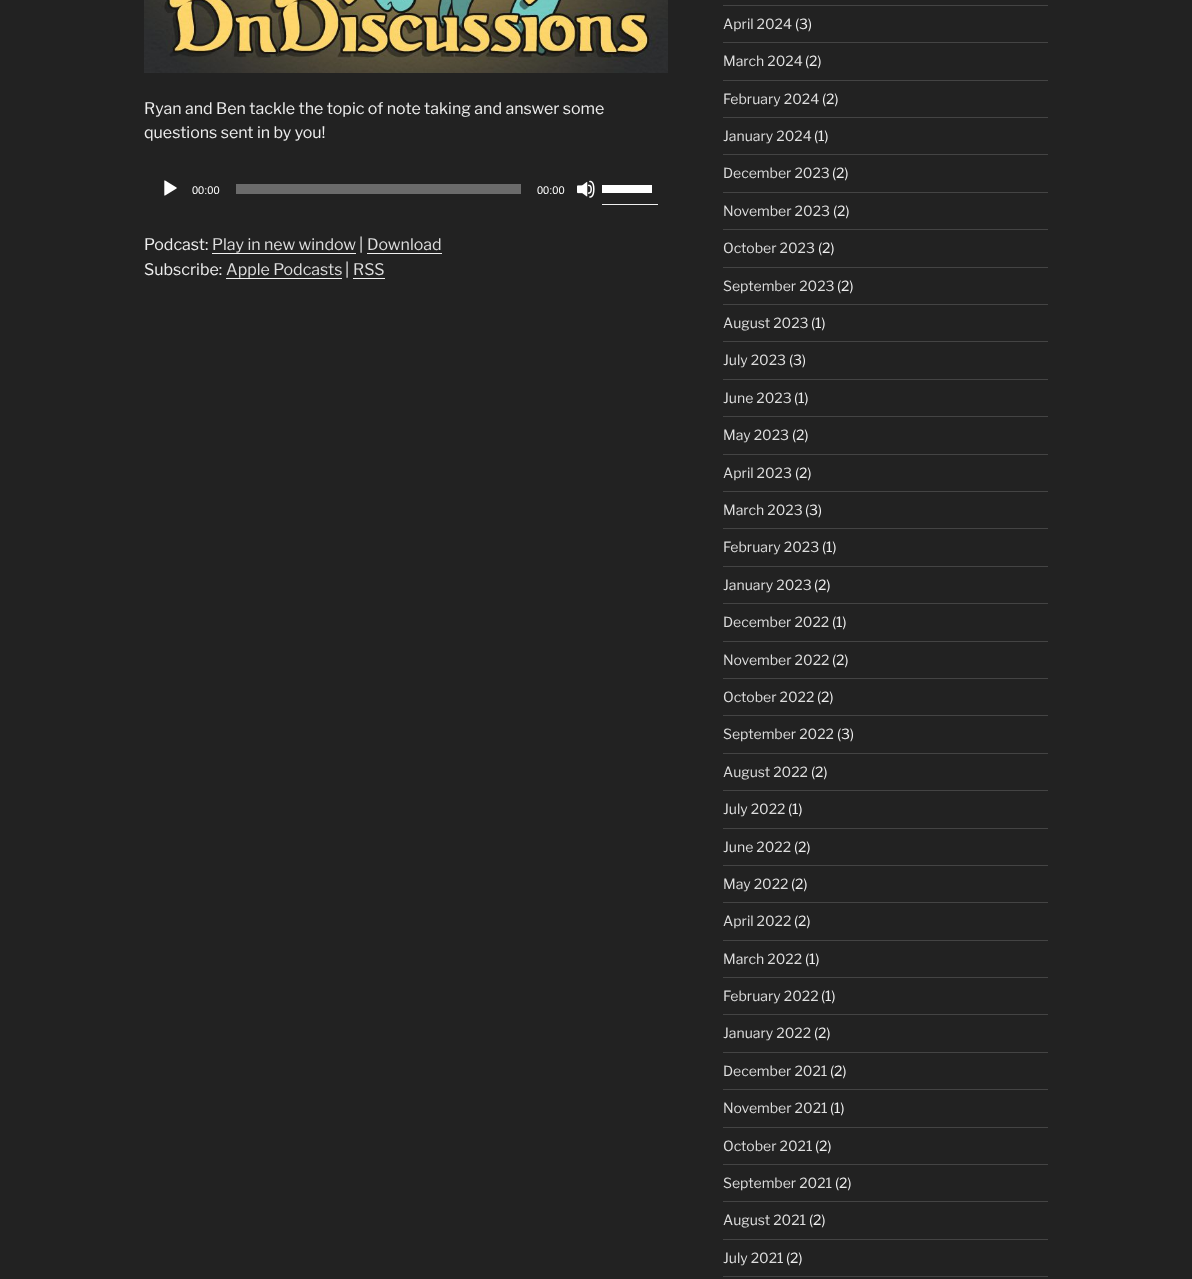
<?xml version="1.0" encoding="UTF-8"?>
<svg xmlns="http://www.w3.org/2000/svg" xmlns:xlink="http://www.w3.org/1999/xlink" width="1192" height="1279">
  <rect width="100%" height="100%" fill="#222222" />
  <image x="144" y="0" width="524" height="73" xlink:href="image1.png" />
  <image x="164" y="180" width="13" height="16" xlink:href="image2.png" />
  <rect x="236" y="184" width="285" height="10" fill="#6b6b6b" />
  <image x="577" y="180" width="18" height="18" xlink:href="image3.png" />
  <rect x="602" y="204" width="56" height="1" fill="#f0f0f0" />
  <rect x="602" y="185" width="50" height="8" fill="#ffffff" />
  <rect x="212" y="253" width="144" height="1" fill="#f0f0f0" />
  <rect x="367" y="253" width="75" height="1" fill="#f0f0f0" />
  <rect x="226" y="278" width="116" height="1" fill="#f0f0f0" />
  <rect x="353" y="278" width="32" height="1" fill="#f0f0f0" />
  <rect x="723" y="5" width="325" height="1" fill="#444444" />
  <rect x="723" y="42" width="325" height="1" fill="#444444" />
  <rect x="723" y="80" width="325" height="1" fill="#444444" />
  <rect x="723" y="117" width="325" height="1" fill="#444444" />
  <rect x="723" y="154" width="325" height="1" fill="#444444" />
  <rect x="723" y="192" width="325" height="1" fill="#444444" />
  <rect x="723" y="229" width="325" height="1" fill="#444444" />
  <rect x="723" y="267" width="325" height="1" fill="#444444" />
  <rect x="723" y="304" width="325" height="1" fill="#444444" />
  <rect x="723" y="341" width="325" height="1" fill="#444444" />
  <rect x="723" y="379" width="325" height="1" fill="#444444" />
  <rect x="723" y="416" width="325" height="1" fill="#444444" />
  <rect x="723" y="454" width="325" height="1" fill="#444444" />
  <rect x="723" y="491" width="325" height="1" fill="#444444" />
  <rect x="723" y="528" width="325" height="1" fill="#444444" />
  <rect x="723" y="566" width="325" height="1" fill="#444444" />
  <rect x="723" y="603" width="325" height="1" fill="#444444" />
  <rect x="723" y="641" width="325" height="1" fill="#444444" />
  <rect x="723" y="678" width="325" height="1" fill="#444444" />
  <rect x="723" y="715" width="325" height="1" fill="#444444" />
  <rect x="723" y="753" width="325" height="1" fill="#444444" />
  <rect x="723" y="790" width="325" height="1" fill="#444444" />
  <rect x="723" y="828" width="325" height="1" fill="#444444" />
  <rect x="723" y="865" width="325" height="1" fill="#444444" />
  <rect x="723" y="902" width="325" height="1" fill="#444444" />
  <rect x="723" y="940" width="325" height="1" fill="#444444" />
  <rect x="723" y="977" width="325" height="1" fill="#444444" />
  <rect x="723" y="1014" width="325" height="1" fill="#444444" />
  <rect x="723" y="1052" width="325" height="1" fill="#444444" />
  <rect x="723" y="1089" width="325" height="1" fill="#444444" />
  <rect x="723" y="1127" width="325" height="1" fill="#444444" />
  <rect x="723" y="1164" width="325" height="1" fill="#444444" />
  <rect x="723" y="1201" width="325" height="1" fill="#444444" />
  <rect x="723" y="1239" width="325" height="1" fill="#444444" />
  <rect x="723" y="1276" width="325" height="1" fill="#444444" />
  <text x="144" y="114" style="font-family: Libre Franklin; font-size: 16px; font-weight: 100; fill: #eeeeee">Ryan and Ben tackle the topic of note taking and answer some</text>
  <text x="144" y="138" style="font-family: Libre Franklin; font-size: 16px; font-weight: 100; fill: #eeeeee">questions sent in by you!</text>
  <text x="192" y="194" style="font-family: Liberation Sans; font-size: 11px; fill: #ffffff">00:00</text>
  <text x="537" y="194" style="font-family: Liberation Sans; font-size: 11px; fill: #ffffff">00:00</text>
  <text x="144" y="250" style="font-family: Libre Franklin; font-size: 16px; font-weight: 100; fill: #eeeeee">Podcast:</text>
  <text x="212" y="250" style="font-family: Libre Franklin; font-size: 16px; font-weight: 100; fill: #dddddd">Play in new window</text>
  <text x="359" y="250" style="font-family: Libre Franklin; font-size: 16px; font-weight: 100; fill: #eeeeee">|</text>
  <text x="367" y="250" style="font-family: Libre Franklin; font-size: 16px; font-weight: 100; fill: #dddddd">Download</text>
  <text x="144" y="275" style="font-family: Libre Franklin; font-size: 16px; font-weight: 100; fill: #eeeeee">Subscribe:</text>
  <text x="226" y="275" style="font-family: Libre Franklin; font-size: 16px; font-weight: 100; fill: #dddddd">Apple Podcasts</text>
  <text x="345" y="275" style="font-family: Libre Franklin; font-size: 16px; font-weight: 100; fill: #eeeeee">|</text>
  <text x="353" y="275" style="font-family: Libre Franklin; font-size: 16px; font-weight: 100; fill: #dddddd">RSS</text>
  <text x="723" y="29" style="font-family: Libre Franklin; font-size: 14px; font-weight: 100; fill: #dddddd">April 2024</text>
  <text x="795" y="29" style="font-family: Libre Franklin; font-size: 14px; font-weight: 100; fill: #eeeeee">(3)</text>
  <text x="723" y="66" style="font-family: Libre Franklin; font-size: 14px; font-weight: 100; fill: #dddddd">March 2024</text>
  <text x="805" y="66" style="font-family: Libre Franklin; font-size: 14px; font-weight: 100; fill: #eeeeee">(2)</text>
  <text x="723" y="104" style="font-family: Libre Franklin; font-size: 14px; font-weight: 100; fill: #dddddd">February 2024</text>
  <text x="822" y="104" style="font-family: Libre Franklin; font-size: 14px; font-weight: 100; fill: #eeeeee">(2)</text>
  <text x="723" y="141" style="font-family: Libre Franklin; font-size: 14px; font-weight: 100; fill: #dddddd">January 2024</text>
  <text x="814" y="141" style="font-family: Libre Franklin; font-size: 14px; font-weight: 100; fill: #eeeeee">(1)</text>
  <text x="723" y="178" style="font-family: Libre Franklin; font-size: 14px; font-weight: 100; fill: #dddddd">December 2023</text>
  <text x="832" y="178" style="font-family: Libre Franklin; font-size: 14px; font-weight: 100; fill: #eeeeee">(2)</text>
  <text x="723" y="216" style="font-family: Libre Franklin; font-size: 14px; font-weight: 100; fill: #dddddd">November 2023</text>
  <text x="833" y="216" style="font-family: Libre Franklin; font-size: 14px; font-weight: 100; fill: #eeeeee">(2)</text>
  <text x="723" y="253" style="font-family: Libre Franklin; font-size: 14px; font-weight: 100; fill: #dddddd">October 2023</text>
  <text x="818" y="253" style="font-family: Libre Franklin; font-size: 14px; font-weight: 100; fill: #eeeeee">(2)</text>
  <text x="723" y="291" style="font-family: Libre Franklin; font-size: 14px; font-weight: 100; fill: #dddddd">September 2023</text>
  <text x="837" y="291" style="font-family: Libre Franklin; font-size: 14px; font-weight: 100; fill: #eeeeee">(2)</text>
  <text x="723" y="328" style="font-family: Libre Franklin; font-size: 14px; font-weight: 100; fill: #dddddd">August 2023</text>
  <text x="811" y="328" style="font-family: Libre Franklin; font-size: 14px; font-weight: 100; fill: #eeeeee">(1)</text>
  <text x="723" y="365" style="font-family: Libre Franklin; font-size: 14px; font-weight: 100; fill: #dddddd">July 2023</text>
  <text x="789" y="365" style="font-family: Libre Franklin; font-size: 14px; font-weight: 100; fill: #eeeeee">(3)</text>
  <text x="723" y="403" style="font-family: Libre Franklin; font-size: 14px; font-weight: 100; fill: #dddddd">June 2023</text>
  <text x="794" y="403" style="font-family: Libre Franklin; font-size: 14px; font-weight: 100; fill: #eeeeee">(1)</text>
  <text x="723" y="440" style="font-family: Libre Franklin; font-size: 14px; font-weight: 100; fill: #dddddd">May 2023</text>
  <text x="792" y="440" style="font-family: Libre Franklin; font-size: 14px; font-weight: 100; fill: #eeeeee">(2)</text>
  <text x="723" y="478" style="font-family: Libre Franklin; font-size: 14px; font-weight: 100; fill: #dddddd">April 2023</text>
  <text x="795" y="478" style="font-family: Libre Franklin; font-size: 14px; font-weight: 100; fill: #eeeeee">(2)</text>
  <text x="723" y="515" style="font-family: Libre Franklin; font-size: 14px; font-weight: 100; fill: #dddddd">March 2023</text>
  <text x="805" y="515" style="font-family: Libre Franklin; font-size: 14px; font-weight: 100; fill: #eeeeee">(3)</text>
  <text x="723" y="552" style="font-family: Libre Franklin; font-size: 14px; font-weight: 100; fill: #dddddd">February 2023</text>
  <text x="822" y="552" style="font-family: Libre Franklin; font-size: 14px; font-weight: 100; fill: #eeeeee">(1)</text>
  <text x="723" y="590" style="font-family: Libre Franklin; font-size: 14px; font-weight: 100; fill: #dddddd">January 2023</text>
  <text x="814" y="590" style="font-family: Libre Franklin; font-size: 14px; font-weight: 100; fill: #eeeeee">(2)</text>
  <text x="723" y="627" style="font-family: Libre Franklin; font-size: 14px; font-weight: 100; fill: #dddddd">December 2022</text>
  <text x="832" y="627" style="font-family: Libre Franklin; font-size: 14px; font-weight: 100; fill: #eeeeee">(1)</text>
  <text x="723" y="665" style="font-family: Libre Franklin; font-size: 14px; font-weight: 100; fill: #dddddd">November 2022</text>
  <text x="832" y="665" style="font-family: Libre Franklin; font-size: 14px; font-weight: 100; fill: #eeeeee">(2)</text>
  <text x="723" y="702" style="font-family: Libre Franklin; font-size: 14px; font-weight: 100; fill: #dddddd">October 2022</text>
  <text x="817" y="702" style="font-family: Libre Franklin; font-size: 14px; font-weight: 100; fill: #eeeeee">(2)</text>
  <text x="723" y="739" style="font-family: Libre Franklin; font-size: 14px; font-weight: 100; fill: #dddddd">September 2022</text>
  <text x="837" y="739" style="font-family: Libre Franklin; font-size: 14px; font-weight: 100; fill: #eeeeee">(3)</text>
  <text x="723" y="777" style="font-family: Libre Franklin; font-size: 14px; font-weight: 100; fill: #dddddd">August 2022</text>
  <text x="811" y="777" style="font-family: Libre Franklin; font-size: 14px; font-weight: 100; fill: #eeeeee">(2)</text>
  <text x="723" y="814" style="font-family: Libre Franklin; font-size: 14px; font-weight: 100; fill: #dddddd">July 2022</text>
  <text x="788" y="814" style="font-family: Libre Franklin; font-size: 14px; font-weight: 100; fill: #eeeeee">(1)</text>
  <text x="723" y="852" style="font-family: Libre Franklin; font-size: 14px; font-weight: 100; fill: #dddddd">June 2022</text>
  <text x="794" y="852" style="font-family: Libre Franklin; font-size: 14px; font-weight: 100; fill: #eeeeee">(2)</text>
  <text x="723" y="889" style="font-family: Libre Franklin; font-size: 14px; font-weight: 100; fill: #dddddd">May 2022</text>
  <text x="791" y="889" style="font-family: Libre Franklin; font-size: 14px; font-weight: 100; fill: #eeeeee">(2)</text>
  <text x="723" y="926" style="font-family: Libre Franklin; font-size: 14px; font-weight: 100; fill: #dddddd">April 2022</text>
  <text x="794" y="926" style="font-family: Libre Franklin; font-size: 14px; font-weight: 100; fill: #eeeeee">(2)</text>
  <text x="723" y="964" style="font-family: Libre Franklin; font-size: 14px; font-weight: 100; fill: #dddddd">March 2022</text>
  <text x="805" y="964" style="font-family: Libre Franklin; font-size: 14px; font-weight: 100; fill: #eeeeee">(1)</text>
  <text x="723" y="1001" style="font-family: Libre Franklin; font-size: 14px; font-weight: 100; fill: #dddddd">February 2022</text>
  <text x="821" y="1001" style="font-family: Libre Franklin; font-size: 14px; font-weight: 100; fill: #eeeeee">(1)</text>
  <text x="723" y="1038" style="font-family: Libre Franklin; font-size: 14px; font-weight: 100; fill: #dddddd">January 2022</text>
  <text x="814" y="1038" style="font-family: Libre Franklin; font-size: 14px; font-weight: 100; fill: #eeeeee">(2)</text>
  <text x="723" y="1076" style="font-family: Libre Franklin; font-size: 14px; font-weight: 100; fill: #dddddd">December 2021</text>
  <text x="830" y="1076" style="font-family: Libre Franklin; font-size: 14px; font-weight: 100; fill: #eeeeee">(2)</text>
  <text x="723" y="1113" style="font-family: Libre Franklin; font-size: 14px; font-weight: 100; fill: #dddddd">November 2021</text>
  <text x="830" y="1113" style="font-family: Libre Franklin; font-size: 14px; font-weight: 100; fill: #eeeeee">(1)</text>
  <text x="723" y="1151" style="font-family: Libre Franklin; font-size: 14px; font-weight: 100; fill: #dddddd">October 2021</text>
  <text x="815" y="1151" style="font-family: Libre Franklin; font-size: 14px; font-weight: 100; fill: #eeeeee">(2)</text>
  <text x="723" y="1188" style="font-family: Libre Franklin; font-size: 14px; font-weight: 100; fill: #dddddd">September 2021</text>
  <text x="835" y="1188" style="font-family: Libre Franklin; font-size: 14px; font-weight: 100; fill: #eeeeee">(2)</text>
  <text x="723" y="1225" style="font-family: Libre Franklin; font-size: 14px; font-weight: 100; fill: #dddddd">August 2021</text>
  <text x="809" y="1225" style="font-family: Libre Franklin; font-size: 14px; font-weight: 100; fill: #eeeeee">(2)</text>
  <text x="723" y="1263" style="font-family: Libre Franklin; font-size: 14px; font-weight: 100; fill: #dddddd">July 2021</text>
  <text x="786" y="1263" style="font-family: Libre Franklin; font-size: 14px; font-weight: 100; fill: #eeeeee">(2)</text>
</svg>
